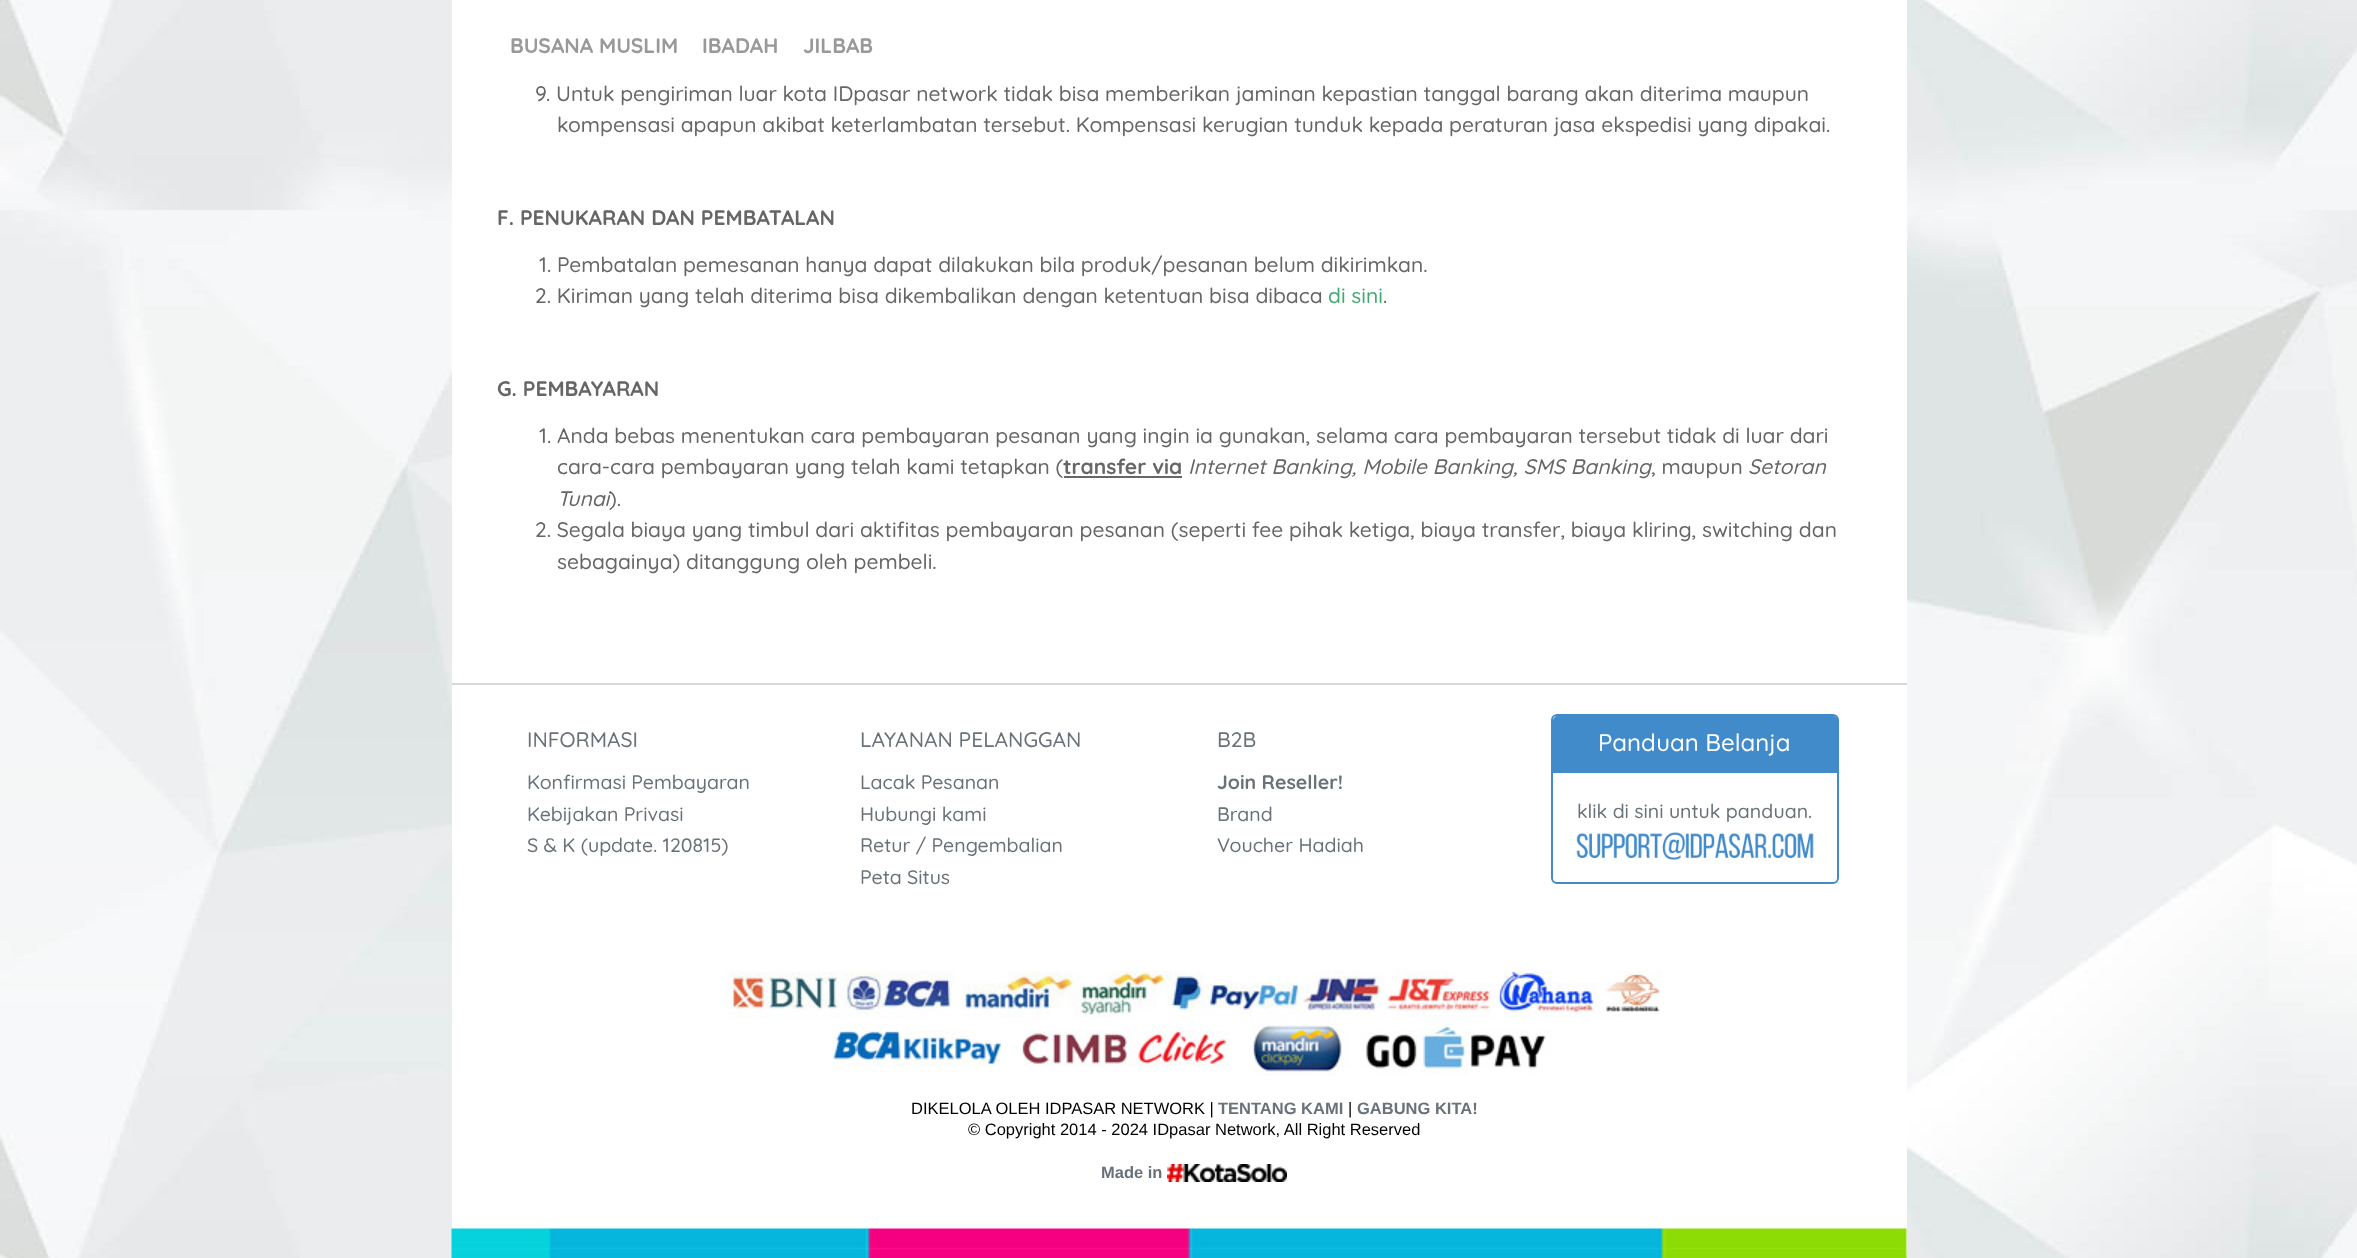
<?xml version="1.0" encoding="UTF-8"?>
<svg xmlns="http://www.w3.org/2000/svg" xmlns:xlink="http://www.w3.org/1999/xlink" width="2357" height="1258">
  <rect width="100%" height="100%" fill="#ffffff" />
  <image x="0" y="0" width="2357" height="1258" xlink:href="image1.png" />
  <rect x="452" y="-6" width="1455" height="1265" rx="6" fill="#ffffff" />
  <rect x="1064" y="476" width="118" height="2" fill="#666666" />
  <rect x="452" y="683" width="1455" height="2" fill="#d8d8d8" />
  <rect x="1552" y="715" width="286" height="168" rx="5" fill="none" stroke="#428bca" stroke-width="2" />
  <path d="M 1558 716 h 275 c 3 0 5 2 5 5 v 52 h -285 v -52 c 0 -3 2 -5 5 -5 z" fill="#428bca" />
  <image x="1576" y="832" width="238" height="28" xlink:href="image2.png" />
  <image x="724" y="970" width="937" height="106" xlink:href="image3.png" />
  <image x="1167" y="1164" width="120" height="18" xlink:href="image4.png" />
  <image x="451" y="1228" width="1456" height="30" xlink:href="image5.png" />
  <text x="510" y="53" style="font-family: Quicksand; font-size: 21px; font-weight: bold; fill: #999999">BUSANA MUSLIM</text>
  <text x="702" y="53" style="font-family: Quicksand; font-size: 21px; font-weight: bold; fill: #999999">IBADAH</text>
  <text x="803" y="53" style="font-family: Quicksand; font-size: 21px; font-weight: bold; fill: #999999">JILBAB</text>
  <text x="535" y="101" style="font-family: Quicksand; font-size: 21px; font-weight: 500; fill: #666666">9. Untuk pengiriman luar kota IDpasar network tidak bisa memberikan jaminan kepastian tanggal barang akan diterima maupun</text>
  <text x="557" y="132" style="font-family: Quicksand; font-size: 21px; font-weight: 500; fill: #666666">kompensasi apapun akibat keterlambatan tersebut. Kompensasi kerugian tunduk kepada peraturan jasa ekspedisi yang dipakai.</text>
  <text x="497" y="225" style="font-family: Quicksand; font-size: 21px; font-weight: bold; fill: #666666">F. PENUKARAN DAN PEMBATALAN</text>
  <text x="539" y="272" style="font-family: Quicksand; font-size: 21px; font-weight: 500; fill: #666666">1. Pembatalan pemesanan hanya dapat dilakukan bila produk/pesanan belum dikirimkan.</text>
  <text x="535" y="303" style="font-family: Quicksand; font-size: 21px; font-weight: 500; fill: #666666">2. Kiriman yang telah diterima bisa dikembalikan dengan ketentuan bisa dibaca</text>
  <text x="1328" y="303" style="font-family: Quicksand; font-size: 21px; font-weight: 500; fill: #42a874">di sini</text>
  <text x="1383" y="303" style="font-family: Quicksand; font-size: 21px; font-weight: 500; fill: #666666">.</text>
  <text x="497" y="396" style="font-family: Quicksand; font-size: 21px; font-weight: bold; fill: #666666">G. PEMBAYARAN</text>
  <text x="539" y="443" style="font-family: Quicksand; font-size: 21px; font-weight: 500; fill: #666666">1. Anda bebas menentukan cara pembayaran pesanan yang ingin ia gunakan, selama cara pembayaran tersebut tidak di luar dari</text>
  <text x="557" y="474" style="font-family: Quicksand; font-size: 21px; font-weight: 500; fill: #666666">cara-cara pembayaran yang telah kami tetapkan (</text>
  <text x="1063" y="474" style="font-family: Quicksand; font-size: 21px; font-weight: bold; fill: #666666">transfer via</text>
  <text x="1188" y="474" style="font-family: Quicksand; font-size: 21px; font-weight: 500; font-style: italic; fill: #666666">Internet Banking, Mobile Banking, SMS Banking</text>
  <text x="1651" y="474" style="font-family: Quicksand; font-size: 21px; font-weight: 500; fill: #666666">, maupun</text>
  <text x="1748" y="474" style="font-family: Quicksand; font-size: 21px; font-weight: 500; font-style: italic; fill: #666666">Setoran</text>
  <text x="557" y="506" style="font-family: Quicksand; font-size: 21px; font-weight: 500; font-style: italic; fill: #666666">Tunai</text>
  <text x="609" y="506" style="font-family: Quicksand; font-size: 21px; font-weight: 500; fill: #666666">).</text>
  <text x="535" y="537" style="font-family: Quicksand; font-size: 21px; font-weight: 500; fill: #666666">2. Segala biaya yang timbul dari aktifitas pembayaran pesanan (seperti fee pihak ketiga, biaya transfer, biaya kliring, switching dan</text>
  <text x="557" y="569" style="font-family: Quicksand; font-size: 21px; font-weight: 500; fill: #666666">sebagainya) ditanggung oleh pembeli.</text>
  <text x="527" y="747" style="font-family: Quicksand; font-size: 21px; font-weight: 500; fill: #697179">INFORMASI</text>
  <text x="527" y="789" style="font-family: Quicksand; font-size: 19.5px; font-weight: 500; fill: #697179">Konfirmasi Pembayaran</text>
  <text x="527" y="821" style="font-family: Quicksand; font-size: 19.5px; font-weight: 500; fill: #697179">Kebijakan Privasi</text>
  <text x="527" y="852" style="font-family: Quicksand; font-size: 19.5px; font-weight: 500; fill: #697179">S &amp; K (update. 120815)</text>
  <text x="860" y="747" style="font-family: Quicksand; font-size: 21px; font-weight: 500; fill: #697179">LAYANAN PELANGGAN</text>
  <text x="860" y="789" style="font-family: Quicksand; font-size: 19.5px; font-weight: 500; fill: #697179">Lacak Pesanan</text>
  <text x="860" y="821" style="font-family: Quicksand; font-size: 19.5px; font-weight: 500; fill: #697179">Hubungi kami</text>
  <text x="860" y="852" style="font-family: Quicksand; font-size: 19.5px; font-weight: 500; fill: #697179">Retur / Pengembalian</text>
  <text x="860" y="884" style="font-family: Quicksand; font-size: 19.5px; font-weight: 500; fill: #697179">Peta Situs</text>
  <text x="1217" y="747" style="font-family: Quicksand; font-size: 21px; font-weight: 500; fill: #697179">B2B</text>
  <text x="1217" y="789" style="font-family: Quicksand; font-size: 19.5px; font-weight: bold; fill: #697179">Join Reseller!</text>
  <text x="1217" y="821" style="font-family: Quicksand; font-size: 19.5px; font-weight: 500; fill: #697179">Brand</text>
  <text x="1217" y="852" style="font-family: Quicksand; font-size: 19.5px; font-weight: 500; fill: #697179">Voucher Hadiah</text>
  <text x="1598" y="751" style="font-family: Quicksand; font-size: 24px; font-weight: 500; fill: #ffffff">Panduan Belanja</text>
  <text x="1577" y="818" style="font-family: Quicksand; font-size: 19.5px; font-weight: 500; fill: #697179">klik di sini untuk panduan.</text>
  <text x="911" y="1114" style="font-family: Liberation Sans; font-size: 16.5px; fill: #000000">DIKELOLA OLEH IDPASAR NETWORK |</text>
  <text x="1218" y="1114" style="font-family: Liberation Sans; font-size: 16.5px; font-weight: bold; fill: #697179">TENTANG KAMI</text>
  <text x="1348" y="1114" style="font-family: Liberation Sans; font-size: 16.5px; fill: #000000">|</text>
  <text x="1357" y="1114" style="font-family: Liberation Sans; font-size: 16.5px; font-weight: bold; fill: #697179">GABUNG KITA!</text>
  <text x="968" y="1135" style="font-family: Liberation Sans; font-size: 16.5px; fill: #000000">© Copyright 2014 - 2024 IDpasar Network, All Right Reserved</text>
  <text x="1101" y="1178" style="font-family: Liberation Sans; font-size: 16.5px; font-weight: bold; fill: #697179">Made in</text>
</svg>
